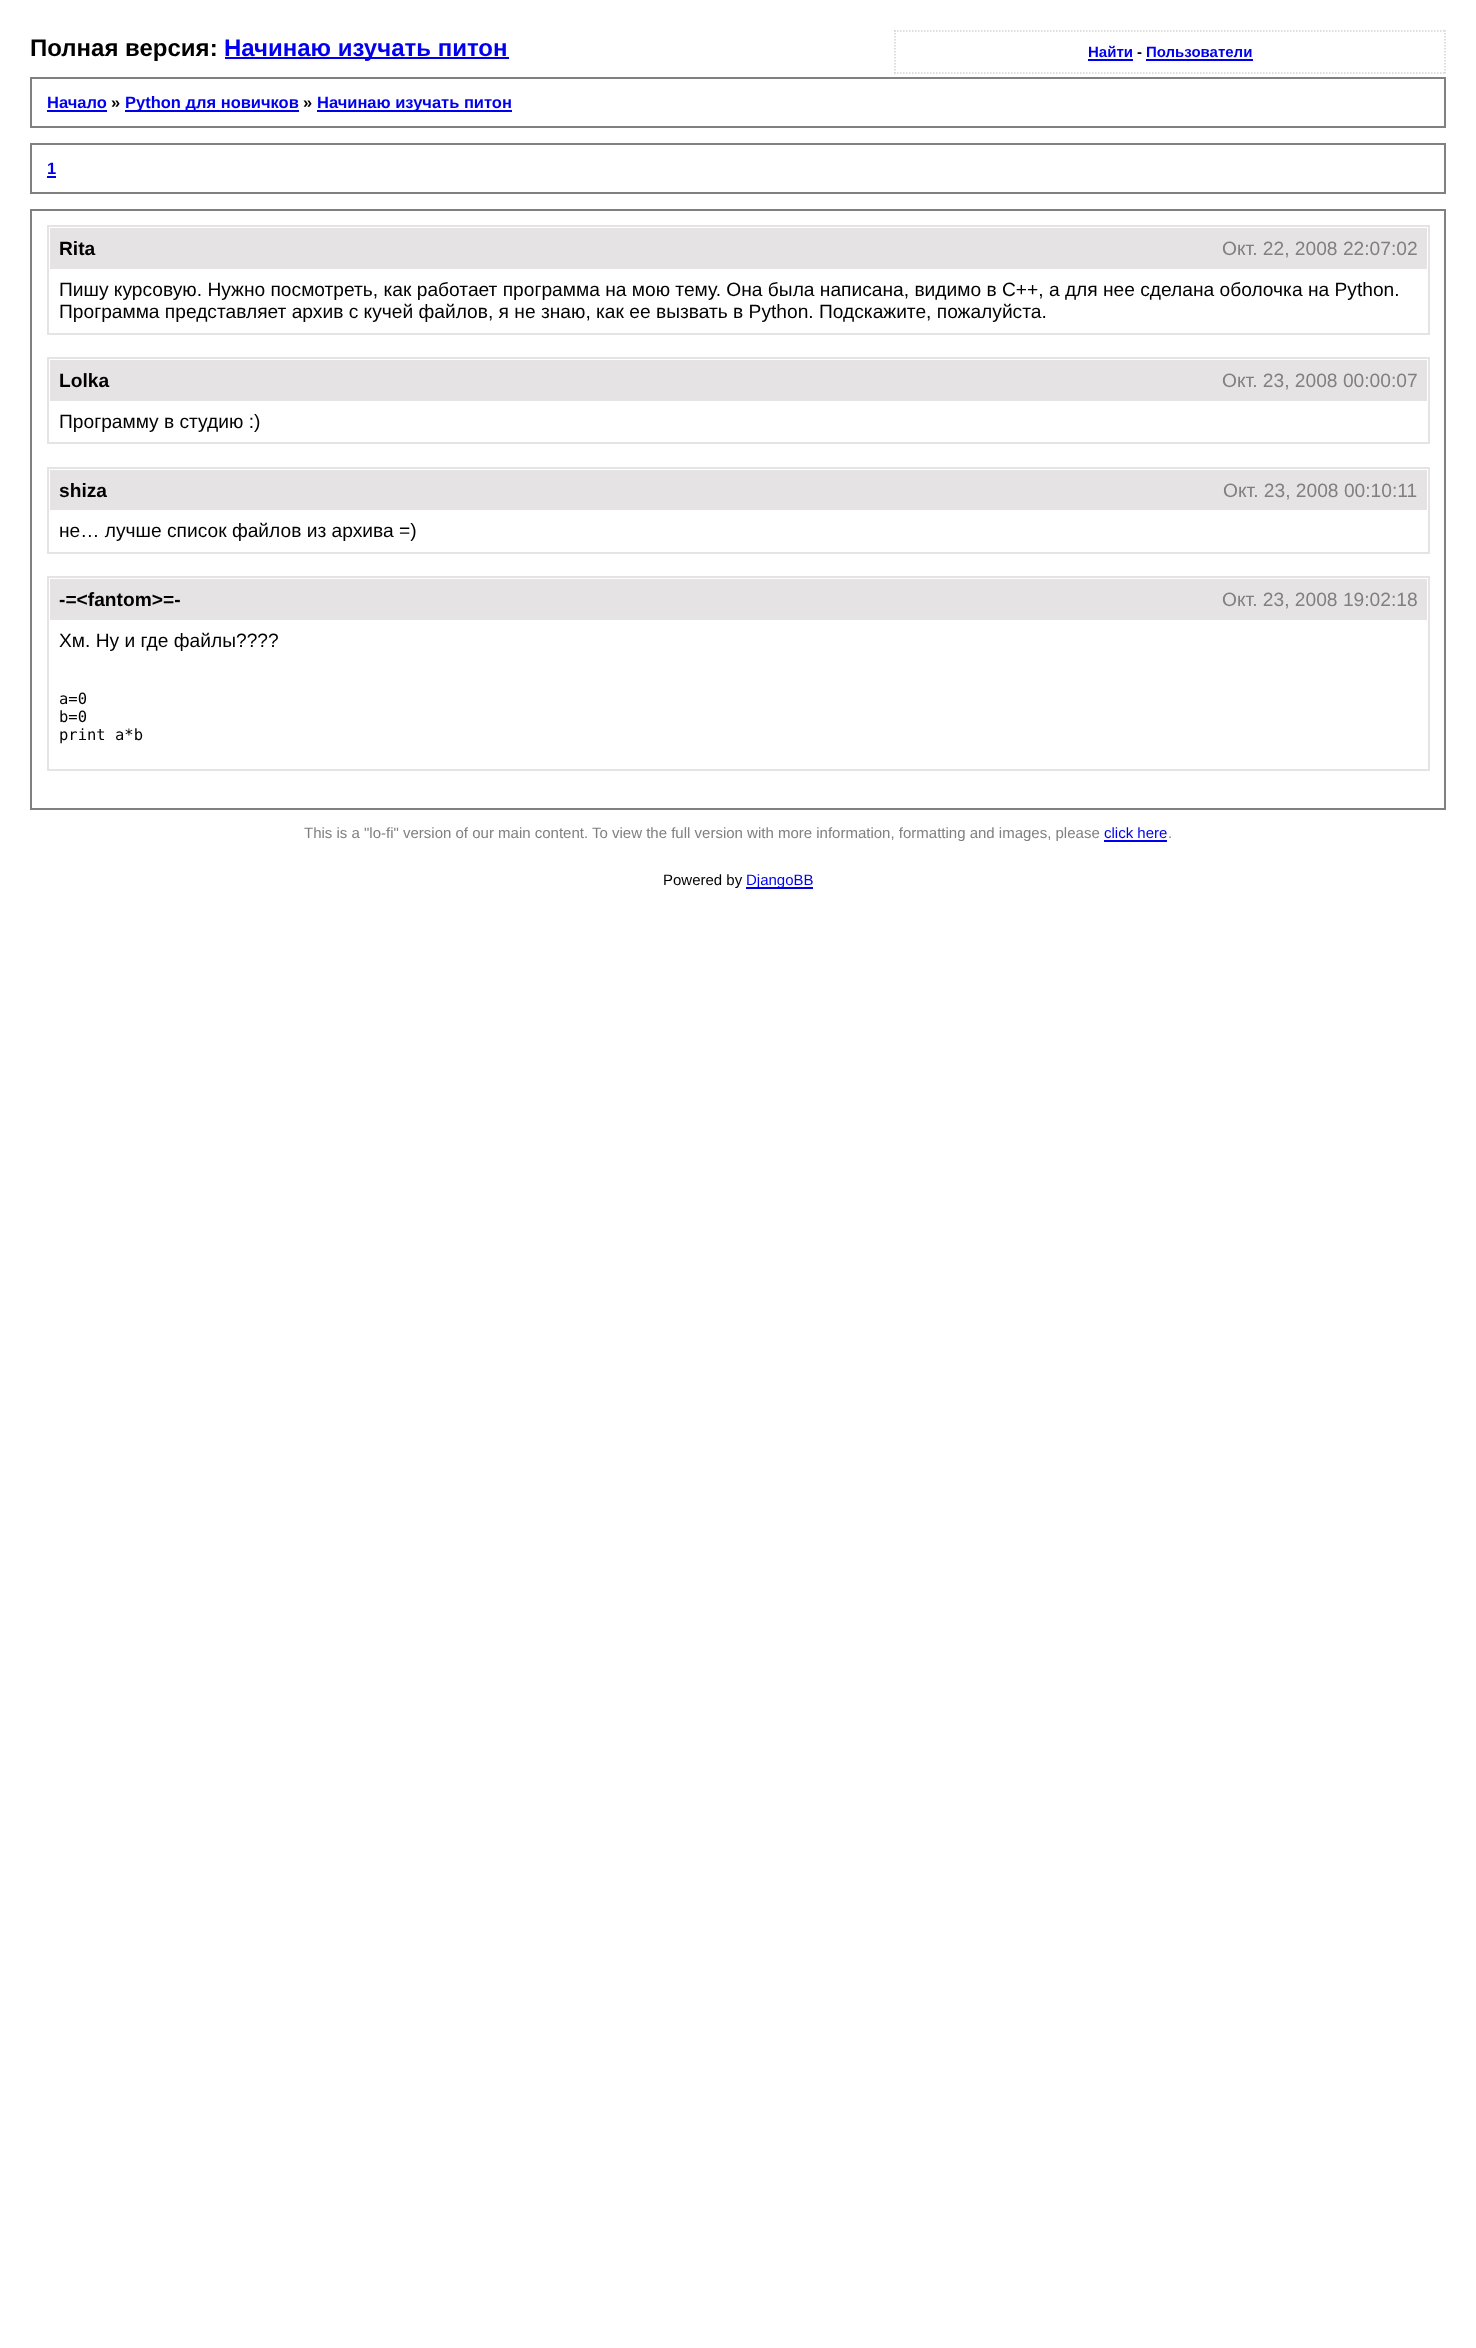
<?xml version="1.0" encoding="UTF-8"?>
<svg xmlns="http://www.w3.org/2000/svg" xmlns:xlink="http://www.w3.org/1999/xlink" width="1476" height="2348">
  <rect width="100%" height="100%" fill="#ffffff" />
  <rect x="225" y="57" width="284" height="2" fill="#0000ee" />
  <path d="M 894 31 h 552" fill="none" stroke="#d3d3d3" stroke-width="1.5" stroke-dasharray="1.5 1.5" />
  <path d="M 1445 30 v 43.5" fill="none" stroke="#d3d3d3" stroke-width="1.5" stroke-dasharray="1.5 1.5" />
  <path d="M 894 73 h 552" fill="none" stroke="#d3d3d3" stroke-width="1.5" stroke-dasharray="1.5 1.5" />
  <path d="M 895 30 v 43.5" fill="none" stroke="#d3d3d3" stroke-width="1.5" stroke-dasharray="1.5 1.5" />
  <rect x="1088" y="59" width="45" height="2" fill="#0000ee" />
  <rect x="1146" y="59" width="107" height="2" fill="#0000ee" />
  <rect x="31" y="78" width="1414" height="49" fill="none" stroke="#808080" stroke-width="2" />
  <rect x="47" y="110" width="60" height="2" fill="#0000ee" />
  <rect x="125" y="110" width="174" height="2" fill="#0000ee" />
  <rect x="317" y="110" width="195" height="2" fill="#0000ee" />
  <rect x="31" y="144" width="1414" height="49" fill="none" stroke="#808080" stroke-width="2" />
  <rect x="47" y="176" width="9" height="2" fill="#0000ee" />
  <rect x="31" y="210" width="1414" height="599" fill="none" stroke="#808080" stroke-width="2" />
  <rect x="48" y="226" width="1381" height="108" fill="none" stroke="#e6e3e4" stroke-width="2" />
  <rect x="50" y="228" width="1377" height="41" fill="#e6e3e4" />
  <rect x="48" y="358" width="1381" height="85" fill="none" stroke="#e6e3e4" stroke-width="2" />
  <rect x="50" y="360" width="1377" height="41" fill="#e6e3e4" />
  <rect x="48" y="468" width="1381" height="85" fill="none" stroke="#e6e3e4" stroke-width="2" />
  <rect x="50" y="470" width="1377" height="40" fill="#e6e3e4" />
  <rect x="48" y="577" width="1381" height="193" fill="none" stroke="#e6e3e4" stroke-width="2" />
  <rect x="50" y="579" width="1377" height="41" fill="#e6e3e4" />
  <rect x="1104" y="840" width="63" height="2" fill="#0000ee" />
  <rect x="746" y="887" width="67" height="2" fill="#0000ee" />
  <text x="30" y="56" style="font-family: Liberation Sans; font-size: 24px; font-weight: bold; fill: #000000">Полная версия:</text>
  <text x="224" y="56" style="font-family: Liberation Sans; font-size: 24px; font-weight: bold; fill: #0000ee">Начинаю изучать питон</text>
  <text x="1088" y="57" style="font-family: Liberation Sans; font-size: 15px; font-weight: bold; fill: #0000ee">Найти</text>
  <text x="1137" y="57" style="font-family: Liberation Sans; font-size: 15px; font-weight: bold; fill: #000000">-</text>
  <text x="1146" y="57" style="font-family: Liberation Sans; font-size: 15px; font-weight: bold; fill: #0000ee">Пользователи</text>
  <text x="47" y="108" style="font-family: Liberation Sans; font-size: 16.5px; font-weight: bold; fill: #0000ee">Начало</text>
  <text x="111" y="108" style="font-family: Liberation Sans; font-size: 16.5px; font-weight: bold; fill: #000000">»</text>
  <text x="125" y="108" style="font-family: Liberation Sans; font-size: 16.5px; font-weight: bold; fill: #0000ee">Python для новичков</text>
  <text x="303" y="108" style="font-family: Liberation Sans; font-size: 16.5px; font-weight: bold; fill: #000000">»</text>
  <text x="317" y="108" style="font-family: Liberation Sans; font-size: 16.5px; font-weight: bold; fill: #0000ee">Начинаю изучать питон</text>
  <text x="47" y="174" style="font-family: Liberation Sans; font-size: 16.5px; font-weight: bold; fill: #0000ee">1</text>
  <text x="59" y="255" style="font-family: Liberation Sans; font-size: 19.2px; font-weight: bold; fill: #000000">Rita</text>
  <text x="1222" y="255" style="font-family: Liberation Sans; font-size: 19.2px; fill: #808080">Окт. 22, 2008 22:07:02</text>
  <text x="59" y="296" style="font-family: Liberation Sans; font-size: 19.2px; fill: #000000">Пишу курсовую. Нужно посмотреть, как работает программа на мою тему. Она была написана, видимо в C++, а для нее сделана оболочка на Python.</text>
  <text x="59" y="318" style="font-family: Liberation Sans; font-size: 19.2px; fill: #000000">Программа представляет архив с кучей файлов, я не знаю, как ее вызвать в Python. Подскажите, пожалуйста.</text>
  <text x="59" y="387" style="font-family: Liberation Sans; font-size: 19.2px; font-weight: bold; fill: #000000">Lolka</text>
  <text x="1222" y="387" style="font-family: Liberation Sans; font-size: 19.2px; fill: #808080">Окт. 23, 2008 00:00:07</text>
  <text x="59" y="428" style="font-family: Liberation Sans; font-size: 19.2px; fill: #000000">Программу в студию :)</text>
  <text x="59" y="497" style="font-family: Liberation Sans; font-size: 19.2px; font-weight: bold; fill: #000000">shiza</text>
  <text x="1223" y="497" style="font-family: Liberation Sans; font-size: 19.2px; fill: #808080">Окт. 23, 2008 00:10:11</text>
  <text x="59" y="537" style="font-family: Liberation Sans; font-size: 19.2px; fill: #000000">не… лучше список файлов из архива =)</text>
  <text x="59" y="606" style="font-family: Liberation Sans; font-size: 19.2px; font-weight: bold; fill: #000000">-=&lt;fantom&gt;=-</text>
  <text x="1222" y="606" style="font-family: Liberation Sans; font-size: 19.2px; fill: #808080">Окт. 23, 2008 19:02:18</text>
  <text x="59" y="647" style="font-family: Liberation Sans; font-size: 19.2px; fill: #000000">Хм. Ну и где файлы????</text>
  <text x="59" y="704" style="font-family: DejaVu Sans Mono; font-size: 15.5px; fill: #000000">a=0</text>
  <text x="59" y="722" style="font-family: DejaVu Sans Mono; font-size: 15.5px; fill: #000000">b=0</text>
  <text x="59" y="740" style="font-family: DejaVu Sans Mono; font-size: 15.5px; fill: #000000">print a*b</text>
  <text x="304" y="838" style="font-family: Liberation Sans; font-size: 15px; fill: #808080">This is a "lo-fi" version of our main content. To view the full version with more information, formatting and images, please</text>
  <text x="1104" y="838" style="font-family: Liberation Sans; font-size: 15px; fill: #0000ee">click here</text>
  <text x="1168" y="838" style="font-family: Liberation Sans; font-size: 15px; fill: #808080">.</text>
  <text x="663" y="885" style="font-family: Liberation Sans; font-size: 15px; fill: #000000">Powered by</text>
  <text x="746" y="885" style="font-family: Liberation Sans; font-size: 15px; fill: #0000ee">DjangoBB</text>
</svg>
